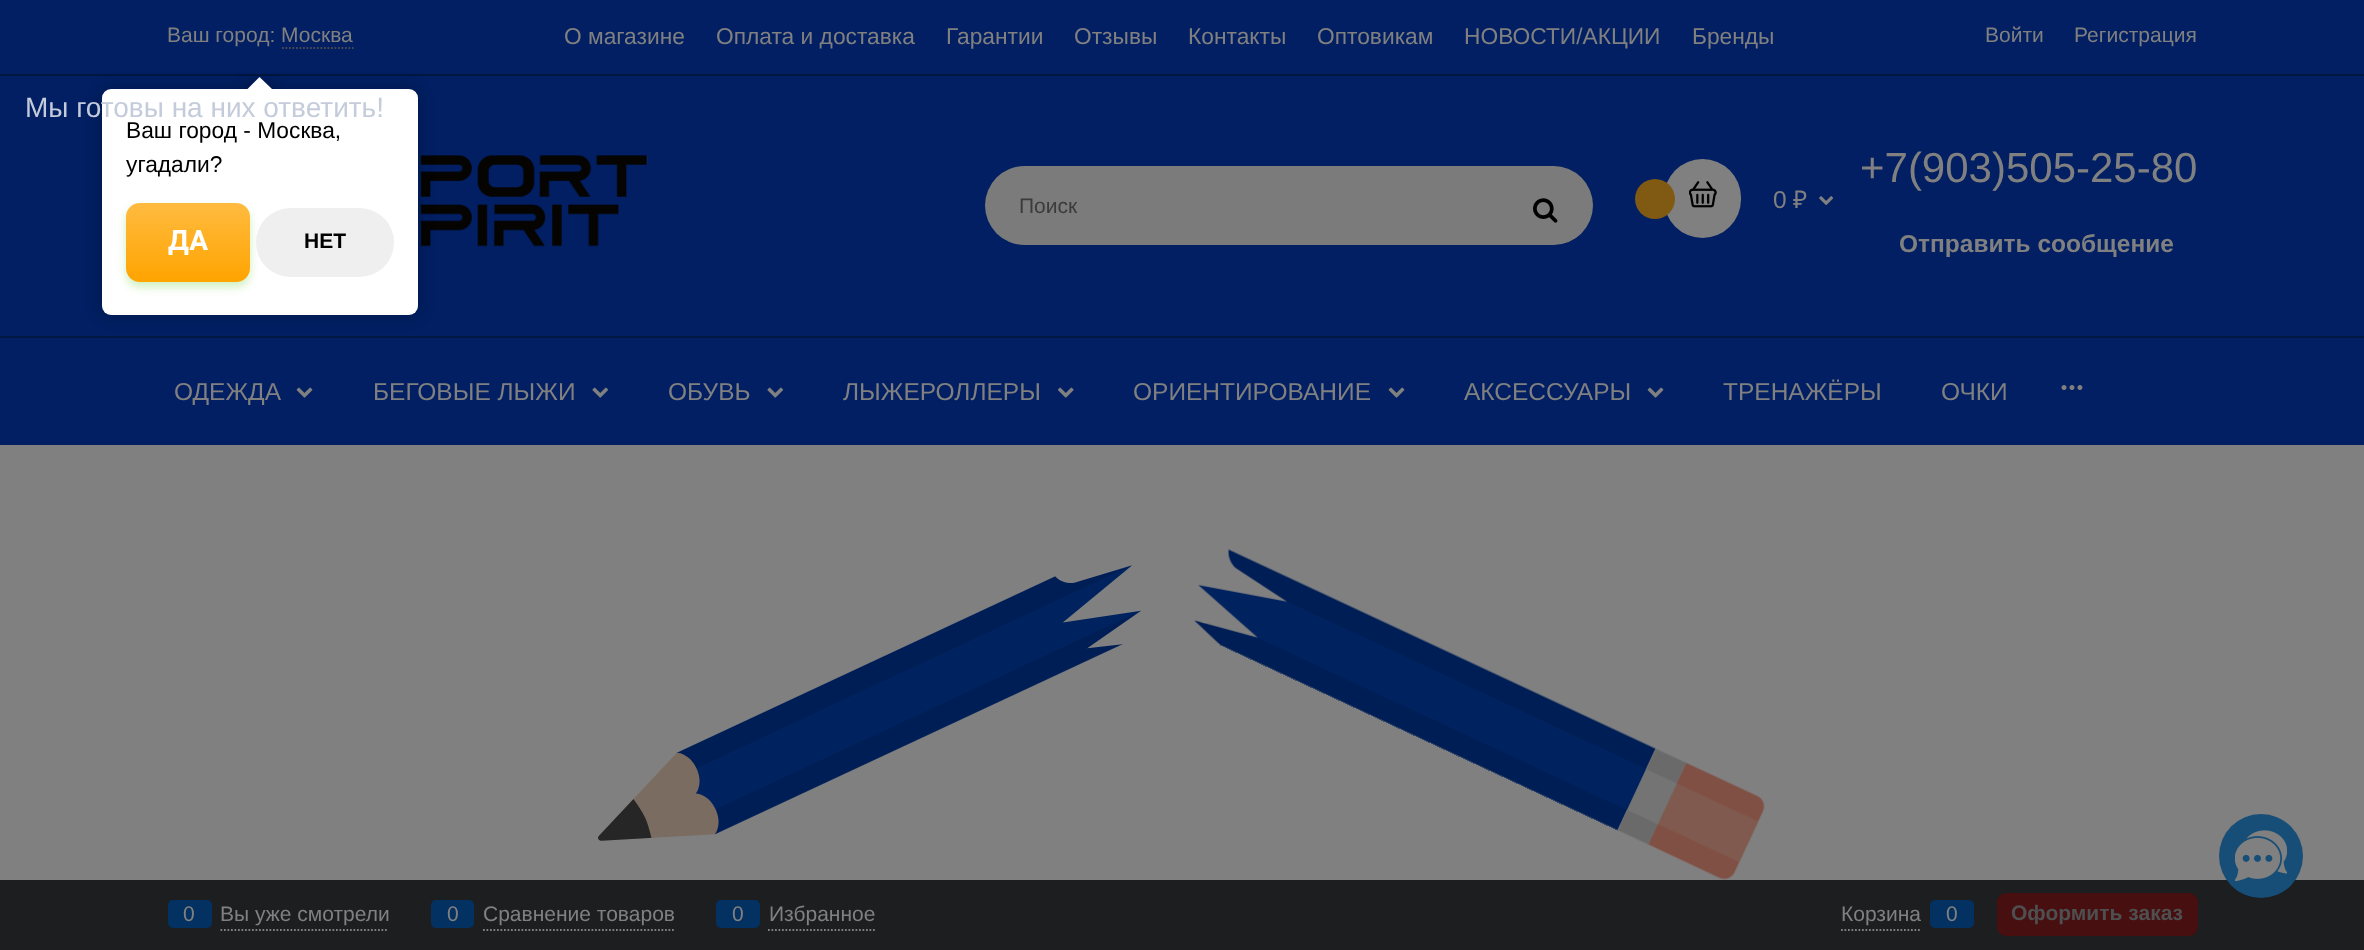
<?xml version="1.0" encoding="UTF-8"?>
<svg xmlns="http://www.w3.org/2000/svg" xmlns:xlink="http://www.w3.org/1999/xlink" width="2364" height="950">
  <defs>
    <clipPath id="clip1"><rect x="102" y="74" width="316" height="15" /></clipPath>
    <clipPath id="clip2"><rect x="102" y="74" width="316" height="15" /></clipPath>
    <linearGradient id="g1" gradientUnits="userSpaceOnUse" x1="188" y1="203" x2="188" y2="282"><stop offset="0" stop-color="#ffbb40" /><stop offset="1" stop-color="#ffa400" /></linearGradient>
  </defs>
  <rect width="100%" height="100%" fill="#808080" />
  <rect width="2364" height="336" fill="#011f62" />
  <rect y="336" width="2364" height="2" fill="#001944" />
  <rect y="74" width="2364" height="2" fill="#00173f" />
  <path d="M 282 48 h 71.5" fill="none" stroke="#4a4b4e" stroke-width="1.8" stroke-dasharray="1.75 1.75" />
  <image x="420" y="155" width="228" height="92" xlink:href="image1.png" />
  <rect x="985" y="166" width="608" height="79" rx="39.5" fill="#7b7b7b" />
  <image x="1533" y="198" width="25" height="25" xlink:href="image2.png" />
  <rect x="1664" y="159" width="77" height="79" rx="38.5" fill="#808080" />
  <circle cx="1655" cy="199" r="20" fill="#805913" />
  <image x="1689" y="181" width="28" height="27" xlink:href="image3.png" />
  <image x="1819" y="196" width="15" height="10" xlink:href="image4.png" />
  <rect y="338" width="2364" height="107" fill="#011f62" />
  <image x="296" y="387" width="17" height="11" xlink:href="image5.png" />
  <image x="592" y="387" width="17" height="11" xlink:href="image6.png" />
  <image x="767" y="387" width="17" height="11" xlink:href="image6.png" />
  <image x="1057" y="387" width="17" height="11" xlink:href="image7.png" />
  <image x="1388" y="387" width="17" height="11" xlink:href="image5.png" />
  <image x="1647" y="387" width="17" height="11" xlink:href="image5.png" />
  <image x="2061" y="385" width="22" height="5" xlink:href="image8.png" />
  <image x="598" y="549" width="1167" height="331" xlink:href="image9.png" />
  <rect y="880" width="2364" height="70" fill="#1c1e20" />
  <path d="M 220.5 930 h 168" fill="none" stroke="#808080" stroke-width="1.8" stroke-dasharray="1.75 1.75" />
  <rect x="168" y="900" width="44" height="28" rx="5" fill="#033161" />
  <path d="M 483 930 h 192.5" fill="none" stroke="#808080" stroke-width="1.8" stroke-dasharray="1.75 1.75" />
  <rect x="431" y="900" width="43" height="28" rx="5" fill="#033161" />
  <path d="M 768 930 h 107" fill="none" stroke="#808080" stroke-width="1.8" stroke-dasharray="1.75 1.75" />
  <rect x="716" y="900" width="44" height="28" rx="5" fill="#033161" />
  <path d="M 1841 930 h 80.5" fill="none" stroke="#808080" stroke-width="1.8" stroke-dasharray="1.75 1.75" />
  <rect x="1930" y="900" width="44" height="28" rx="5" fill="#033161" />
  <rect x="1997" y="893" width="201" height="43" rx="9" fill="#470f10" />
  <rect x="102" y="89" width="316" height="226" rx="9" fill="#000000" fill-opacity="0.25" filter="blur(8px)" />
  <rect x="102" y="89" width="316" height="226" rx="9" fill="#ffffff" />
  <g clip-path="url(#clip1)">
    <rect x="250" y="81" width="18" height="17" fill="#000000" fill-opacity="0.25" filter="blur(8px)" />
  </g>
  <g clip-path="url(#clip2)">
    <path d="M 259.5 77 l 12.5 12 l -12.5 12.5 l -12 -12.5 z" fill="#ffffff" />
  </g>
  <rect x="126" y="208" width="124" height="79" rx="14" fill="#5fcc29" fill-opacity="0.3" filter="blur(5px)" />
  <rect x="126" y="203" width="124" height="79" rx="14" fill="url(#g1)" />
  <rect x="256" y="208" width="138" height="69" rx="34.5" fill="#efefef" />
  <circle cx="2261" cy="856" r="42" fill="#174e77" />
  <image x="2235" y="830" width="52" height="52" xlink:href="image10.png" />
  <text x="167" y="42" style="font-family: Liberation Sans; font-size: 21px; fill: #808080">Ваш город: Москва</text>
  <text x="564" y="44" style="font-family: Liberation Sans; font-size: 22.75px; fill: #808080">О магазине</text>
  <text x="716" y="44" style="font-family: Liberation Sans; font-size: 22.75px; fill: #808080">Оплата и доставка</text>
  <text x="946" y="44" style="font-family: Liberation Sans; font-size: 22.75px; fill: #808080">Гарантии</text>
  <text x="1074" y="44" style="font-family: Liberation Sans; font-size: 22.75px; fill: #808080">Отзывы</text>
  <text x="1188" y="44" style="font-family: Liberation Sans; font-size: 22.75px; fill: #808080">Контакты</text>
  <text x="1317" y="44" style="font-family: Liberation Sans; font-size: 22.75px; fill: #808080">Оптовикам</text>
  <text x="1464" y="44" style="font-family: Liberation Sans; font-size: 22.75px; fill: #808080">НОВОСТИ/АКЦИИ</text>
  <text x="1692" y="44" style="font-family: Liberation Sans; font-size: 22.75px; fill: #808080">Бренды</text>
  <text x="1985" y="42" style="font-family: Liberation Sans; font-size: 21px; fill: #808080">Войти</text>
  <text x="2074" y="42" style="font-family: Liberation Sans; font-size: 21px; fill: #808080">Регистрация</text>
  <text x="1019" y="213" style="font-family: Liberation Sans; font-size: 21px; fill: #3b3b3b">Поиск</text>
  <text x="1773" y="208" style="font-family: Liberation Sans; font-size: 24.5px; fill: #808080">0</text>
  <text x="1793" y="208" style="font-family: Noto Sans; font-size: 24.5px; fill: #808080">₽</text>
  <text x="1860" y="182" style="font-family: Liberation Sans; font-size: 42px; fill: #808080">+7(903)505-25-80</text>
  <text x="1899" y="252" style="font-family: Liberation Sans; font-size: 24.5px; font-weight: bold; fill: #808080">Отправить сообщение</text>
  <text x="174" y="400" style="font-family: Liberation Sans; font-size: 24.5px; fill: #808080">ОДЕЖДА</text>
  <text x="373" y="400" style="font-family: Liberation Sans; font-size: 24.5px; fill: #808080">БЕГОВЫЕ ЛЫЖИ</text>
  <text x="668" y="400" style="font-family: Liberation Sans; font-size: 24.5px; fill: #808080">ОБУВЬ</text>
  <text x="843" y="400" style="font-family: Liberation Sans; font-size: 24.5px; fill: #808080">ЛЫЖЕРОЛЛЕРЫ</text>
  <text x="1133" y="400" style="font-family: Liberation Sans; font-size: 24.5px; fill: #808080">ОРИЕНТИРОВАНИЕ</text>
  <text x="1464" y="400" style="font-family: Liberation Sans; font-size: 24.5px; fill: #808080">АКСЕССУАРЫ</text>
  <text x="1723" y="400" style="font-family: Liberation Sans; font-size: 24.5px; fill: #808080">ТРЕНАЖЁРЫ</text>
  <text x="1941" y="400" style="font-family: Liberation Sans; font-size: 24.5px; fill: #808080">ОЧКИ</text>
  <text x="183" y="921" style="font-family: Liberation Sans; font-size: 21px; fill: #808080">0</text>
  <text x="220" y="921" style="font-family: Liberation Sans; font-size: 21px; fill: #808080">Вы уже смотрели</text>
  <text x="447" y="921" style="font-family: Liberation Sans; font-size: 21px; fill: #808080">0</text>
  <text x="483" y="921" style="font-family: Liberation Sans; font-size: 21px; fill: #808080">Сравнение товаров</text>
  <text x="732" y="921" style="font-family: Liberation Sans; font-size: 21px; fill: #808080">0</text>
  <text x="769" y="921" style="font-family: Liberation Sans; font-size: 21px; fill: #808080">Избранное</text>
  <text x="1841" y="921" style="font-family: Liberation Sans; font-size: 21px; fill: #808080">Корзина</text>
  <text x="1946" y="921" style="font-family: Liberation Sans; font-size: 21px; fill: #808080">0</text>
  <text x="2011" y="920" style="font-family: Liberation Sans; font-size: 21px; font-weight: bold; fill: #4e4f50">Оформить заказ</text>
  <text x="25" y="117" style="font-family: Liberation Sans; font-size: 28px; fill: #c4cbda">Мы готовы на них ответить!</text>
  <text x="126" y="138" style="font-family: Liberation Sans; font-size: 22.75px; fill: #000000">Ваш город - Москва,</text>
  <text x="126" y="172" style="font-family: Liberation Sans; font-size: 22.75px; fill: #000000">угадали?</text>
  <text x="168" y="250" style="font-family: Roboto; font-size: 28px; font-weight: bold; fill: #ffffff">ДА</text>
  <text x="304" y="248" style="font-family: Liberation Sans; font-size: 21px; font-weight: bold; fill: #000000">НЕТ</text>
</svg>
